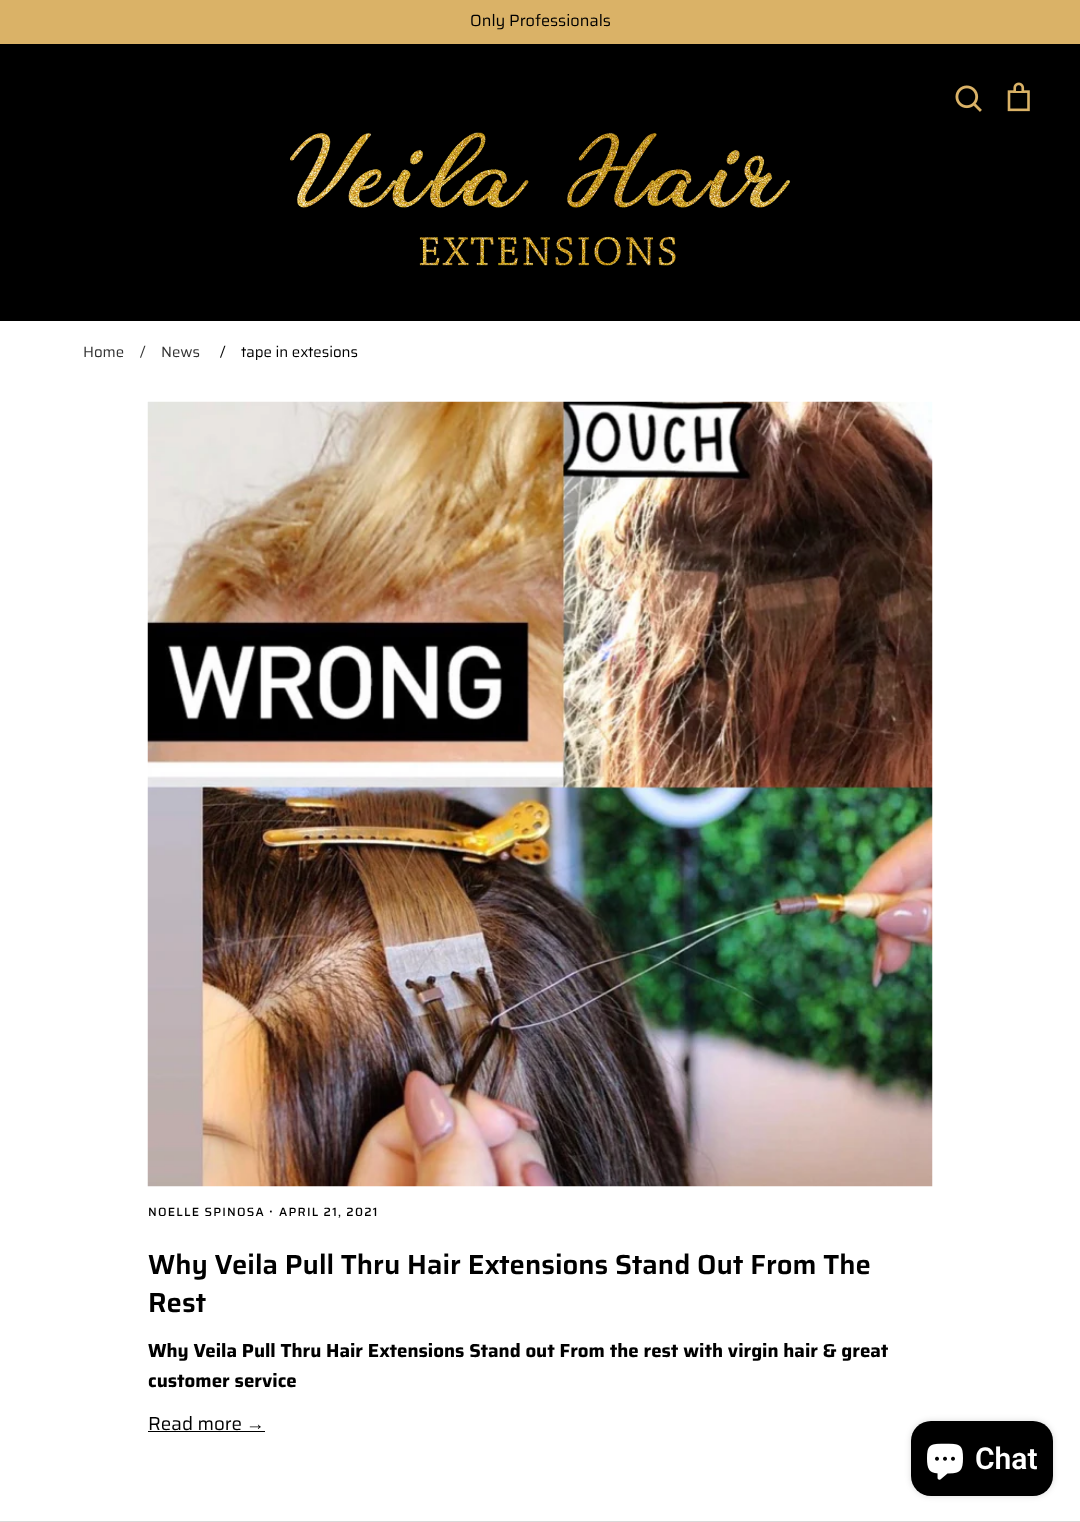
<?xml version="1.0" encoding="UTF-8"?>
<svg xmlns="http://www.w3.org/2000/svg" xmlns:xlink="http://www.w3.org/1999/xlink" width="1080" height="1522">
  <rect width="100%" height="100%" fill="#ffffff" />
  <rect width="1080" height="44" fill="#dab267" />
  <rect y="44" width="1080" height="277" fill="#000000" />
  <image x="955" y="85" width="27" height="27" xlink:href="image1.png" />
  <image x="1007" y="82" width="23" height="30" xlink:href="image2.png" />
  <image x="290" y="132" width="500" height="134" xlink:href="image3.png" />
  <rect y="1521" width="1080" height="1" fill="#d9d9d9" />
  <image x="147" y="401" width="786" height="786" xlink:href="image4.png" />
  <rect x="148" y="1431" width="117" height="1" fill="#000000" />
  <rect x="911" y="1421" width="142" height="75" rx="20" fill="#000000" fill-opacity="0.15" filter="blur(3px)" />
  <rect x="911" y="1421" width="142" height="75" rx="20" fill="#000000" />
  <image x="927" y="1443" width="36" height="37" xlink:href="image5.png" />
  <text x="470" y="26" style="font-family: Saira; font-size: 16.25px; fill: #000000">Only Professionals</text>
  <text x="83" y="357" style="font-family: Saira; font-size: 15px; fill: #333333">Home</text>
  <text x="140" y="357" style="font-family: Saira; font-size: 15px; fill: #333333">/</text>
  <text x="161" y="357" style="font-family: Saira; font-size: 15px; fill: #333333">News</text>
  <text x="220" y="357" style="font-family: Saira; font-size: 15px; fill: #000000">/</text>
  <text x="241" y="357" style="font-family: Saira; font-size: 15px; fill: #000000">tape in extesions</text>
  <text x="148" y="1216" style="font-family: Saira; font-size: 12px; font-weight: 500; letter-spacing: 1.25px; fill: #000000">NOELLE SPINOSA</text>
  <text x="269" y="1216" style="font-family: Saira; font-size: 15px; font-weight: 500; letter-spacing: 1.25px; fill: #000000">·</text>
  <text x="279" y="1216" style="font-family: Saira; font-size: 12px; font-weight: 500; letter-spacing: 1.25px; fill: #000000">APRIL 21, 2021</text>
  <text x="148" y="1274" style="font-family: Saira; font-size: 27.5px; font-weight: 600; fill: #000000">Why Veila Pull Thru Hair Extensions Stand Out From The</text>
  <text x="148" y="1312" style="font-family: Saira; font-size: 27.5px; font-weight: 600; fill: #000000">Rest</text>
  <text x="148" y="1357" style="font-family: Saira; font-size: 18.75px; font-weight: bold; fill: #000000">Why Veila Pull Thru Hair Extensions Stand out From the rest with virgin hair &amp; great</text>
  <text x="148" y="1387" style="font-family: Saira; font-size: 18.75px; font-weight: bold; fill: #000000">customer service</text>
  <text x="148" y="1430" style="font-family: Saira; font-size: 18.75px; fill: #000000">Read more</text>
  <text x="246" y="1430" style="font-family: Liberation Sans; font-size: 18.75px; fill: #000000">→</text>
  <text x="975" y="1469" style="font-family: Roboto; font-size: 30px; font-weight: 600; fill: #ffffff">Chat</text>
</svg>
